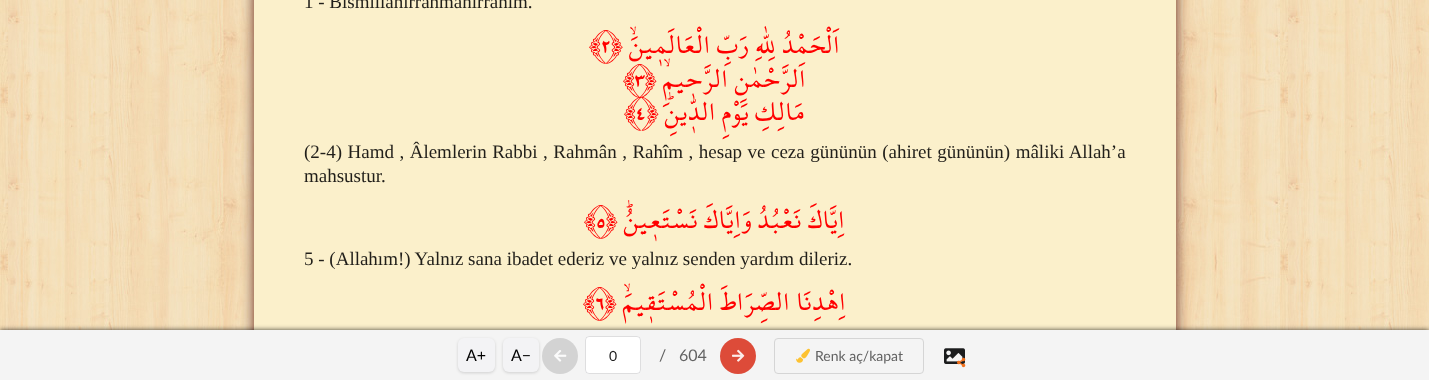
<?xml version="1.0" encoding="UTF-8"?>
<svg xmlns="http://www.w3.org/2000/svg" xmlns:xlink="http://www.w3.org/1999/xlink" width="1429" height="380">
  <rect width="100%" height="100%" fill="#ffffff" />
  <image x="0" y="0" width="1429" height="330" xlink:href="image1.png" />
  <rect x="254" y="-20" width="922" height="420" fill="#4a0303" fill-opacity="0.84" filter="blur(6.5px)" />
  <rect x="254" width="922" height="330" fill="#fbf0cb" />
  <rect y="330" width="1429" height="50" fill="#000000" fill-opacity="0.75" filter="blur(2.5px)" />
  <rect y="330" width="1429" height="50" fill="#f4f4f4" />
  <rect x="458" y="339" width="37" height="34" rx="6" fill="#000000" fill-opacity="0.15" filter="blur(1.5px)" />
  <rect x="458" y="338" width="37" height="34" rx="6" fill="#f3f3f5" />
  <rect x="503" y="339" width="36" height="34" rx="6" fill="#000000" fill-opacity="0.15" filter="blur(1.5px)" />
  <rect x="503" y="338" width="36" height="34" rx="6" fill="#f3f3f5" />
  <circle cx="560" cy="356" r="18" fill="#d3d3d3" />
  <image x="554" y="350" width="13" height="12" xlink:href="image2.png" />
  <rect x="585" y="336" width="56" height="38" rx="4" fill="#ffffff" />
  <rect x="585.5" y="336.5" width="55" height="37" rx="3.5" fill="none" stroke="#222426" stroke-opacity="0.15" />
  <circle cx="738" cy="356" r="18" fill="#dd4b39" />
  <image x="732" y="349" width="13" height="13" xlink:href="image3.png" />
  <rect x="774.5" y="338.5" width="149" height="35" rx="3.5" fill="none" stroke="#d5d5d5" />
  <image x="796" y="348" width="14" height="15" xlink:href="image4.png" />
  <image x="944" y="348" width="21" height="16" xlink:href="image5.png" />
  <image x="957" y="357" width="9" height="11" xlink:href="image6.png" />
  <text x="304" y="8" style="font-family: Liberation Serif; font-size: 19px; fill: #211f1a">1 - Bismillâhirrahmânirrahîm.</text>
  <text x="589" y="53" style="font-family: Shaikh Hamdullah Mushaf; font-size: 30px; fill: #ff0000">﴾٢</text>
  <text x="840" y="53" style="font-family: Shaikh Hamdullah Mushaf; font-size: 30px; direction: rtl; fill: #ff0000">اَلْحَمْدُ لِلّٰهِ رَبِّ الْعَالَم۪ينَۙ ﴿</text>
  <text x="623" y="87" style="font-family: Shaikh Hamdullah Mushaf; font-size: 30px; fill: #ff0000">﴾٣</text>
  <text x="806" y="87" style="font-family: Shaikh Hamdullah Mushaf; font-size: 30px; direction: rtl; fill: #ff0000">اَلرَّحْمٰنِ الرَّح۪يمِۙ ﴿</text>
  <text x="624" y="120" style="font-family: Shaikh Hamdullah Mushaf; font-size: 30px; fill: #ff0000">﴾٤</text>
  <text x="805" y="120" style="font-family: Shaikh Hamdullah Mushaf; font-size: 30px; direction: rtl; fill: #ff0000">مَالِكِ يَوْمِ الدّ۪ينِۜ ﴿</text>
  <text x="304" y="158" word-spacing="0.75" style="font-family: Liberation Serif; font-size: 19px; fill: #211f1a">(2-4) Hamd , Âlemlerin Rabbi , Rahmân , Rahîm , hesap ve ceza gününün (ahiret gününün) mâliki Allah’a</text>
  <text x="304" y="182" style="font-family: Liberation Serif; font-size: 19px; fill: #211f1a">mahsustur.</text>
  <text x="584" y="228" style="font-family: Shaikh Hamdullah Mushaf; font-size: 30px; fill: #ff0000">﴾٥</text>
  <text x="845" y="228" style="font-family: Shaikh Hamdullah Mushaf; font-size: 30px; direction: rtl; fill: #ff0000">اِيَّاكَ نَعْبُدُ وَاِيَّاكَ نَسْتَع۪ينُۜ ﴿</text>
  <text x="304" y="265" style="font-family: Liberation Serif; font-size: 19px; fill: #211f1a">5 - (Allahım!) Yalnız sana ibadet ederiz ve yalnız senden yardım dileriz.</text>
  <text x="583" y="310" style="font-family: Shaikh Hamdullah Mushaf; font-size: 30px; fill: #ff0000">﴾٦</text>
  <text x="846" y="310" style="font-family: Shaikh Hamdullah Mushaf; font-size: 30px; direction: rtl; fill: #ff0000">اِهْدِنَا الصِّرَاطَ الْمُسْتَق۪يمَۙ ﴿</text>
  <text x="466" y="361" style="font-family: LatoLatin; font-size: 16px; fill: #000000">A+</text>
  <text x="511" y="361" style="font-family: LatoLatin; font-size: 16px; fill: #000000">A−</text>
  <text x="609" y="361" style="font-family: LatoLatin; font-size: 14px; fill: #212121">0</text>
  <text x="659" y="361" style="font-family: LatoLatin; font-size: 16px; fill: #626262">/</text>
  <text x="679" y="361" style="font-family: LatoLatin; font-size: 16px; fill: #626262">604</text>
  <text x="815" y="361" style="font-family: LatoLatin; font-size: 14px; fill: #626262">Renk aç/kapat</text>
</svg>
